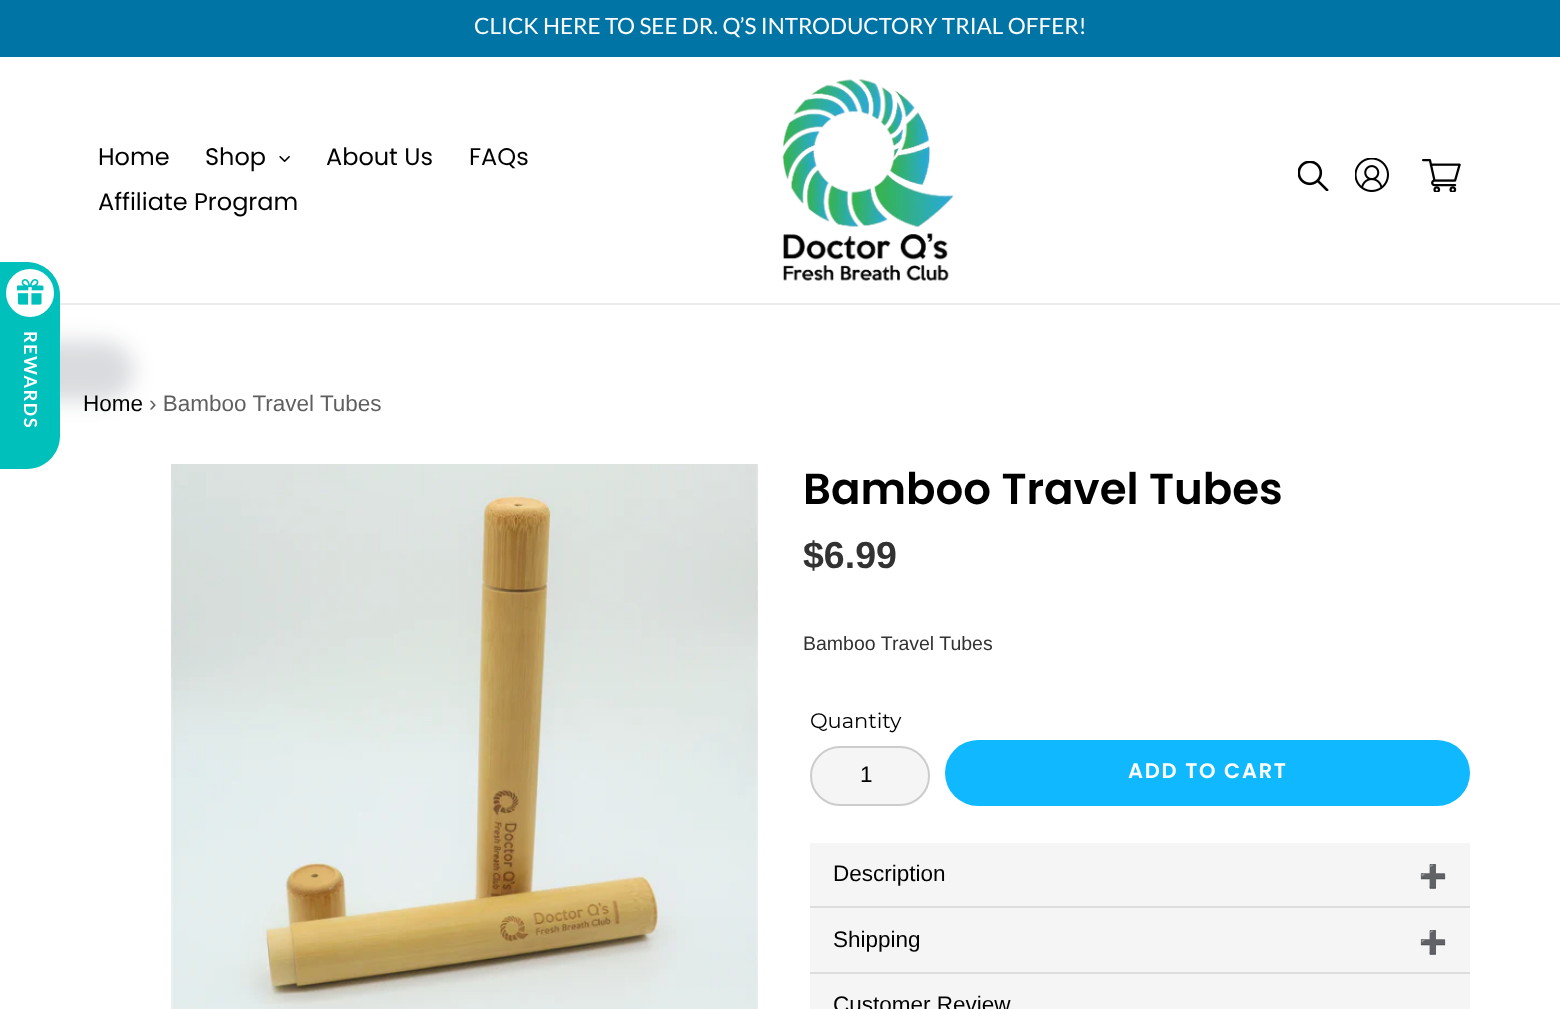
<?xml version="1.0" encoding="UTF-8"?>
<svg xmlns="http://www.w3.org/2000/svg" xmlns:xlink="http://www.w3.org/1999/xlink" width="1560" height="1009">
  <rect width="100%" height="100%" fill="#ffffff" />
  <rect width="1560" height="57" fill="#0074a5" />
  <rect x="60" y="303" width="1500" height="2" fill="#ebebeb" />
  <image x="279" y="156" width="11" height="6" xlink:href="image1.png" />
  <image x="782" y="79" width="172" height="202" xlink:href="image2.png" />
  <image x="1298" y="161" width="31" height="30" xlink:href="image3.png" />
  <image x="1355" y="158" width="34" height="34" xlink:href="image4.png" />
  <image x="1422" y="159" width="39" height="33" xlink:href="image5.png" />
  <rect x="-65" y="341" width="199" height="60" rx="33" fill="#112233" fill-opacity="0.16" filter="blur(10.5px)" />
  <path d="M 60 295 v 141 c 0 18 -15 33 -33 33 h -27 v -207 h 27 c 18 0 33 15 33 33 z" fill="#00c0bc" />
  <circle cx="30" cy="293" r="24" fill="#ffffff" />
  <image x="17" y="279" width="27" height="26" xlink:href="image6.png" />
  <image x="171" y="464" width="587" height="545" xlink:href="image7.png" />
  <rect x="811" y="747" width="118" height="58" rx="29" fill="#f5f5f5" stroke="#cccccc" stroke-width="2" />
  <rect x="945" y="740" width="525" height="66" rx="33" fill="#10b8ff" />
  <rect x="810" y="843" width="660" height="63" fill="#f5f5f5" />
  <rect x="810" y="906" width="660" height="2" fill="#dddddd" />
  <rect x="810" y="908" width="660" height="64" fill="#f5f5f5" />
  <rect x="810" y="972" width="660" height="2" fill="#dddddd" />
  <rect x="810" y="974" width="660" height="35" fill="#f5f5f5" />
  <text x="474" y="34" style="font-family: Lato; font-size: 22.5px; fill: #ffffff">CLICK HERE TO SEE DR. Q’S INTRODUCTORY TRIAL OFFER!</text>
  <text x="98" y="165" style="font-family: Poppins; font-size: 24px; fill: #000000">Home</text>
  <text x="205" y="165" style="font-family: Poppins; font-size: 24px; fill: #000000">Shop</text>
  <text x="326" y="165" style="font-family: Poppins; font-size: 24px; fill: #000000">About Us</text>
  <text x="469" y="165" style="font-family: Poppins; font-size: 24px; fill: #000000">FAQs</text>
  <text x="98" y="210" style="font-family: Poppins; font-size: 24px; fill: #000000">Affiliate Program</text>
  <text x="24" y="331" transform="rotate(90 24 331)" style="font-family: Lato; font-size: 18px; font-weight: bold; letter-spacing: 1.5px; fill: #ffffff">REWARDS</text>
  <text x="83" y="411" style="font-family: Arimo; font-size: 22.5px; fill: #000000">Home</text>
  <text x="149" y="411" style="font-family: Arimo; font-size: 22.5px; fill: #5f5f5f">› Bamboo Travel Tubes</text>
  <text x="803" y="504" style="font-family: Poppins; font-size: 43.5px; font-weight: 600; fill: #000000">Bamboo Travel Tubes</text>
  <text x="803" y="568" style="font-family: Arimo; font-size: 37.5px; font-weight: bold; fill: #333232">$6.99</text>
  <text x="803" y="650" style="font-family: Arimo; font-size: 19.5px; fill: #333232">Bamboo Travel Tubes</text>
  <text x="810" y="728" style="font-family: Montserrat; font-size: 21px; fill: #000000">Quantity</text>
  <text x="860" y="782" style="font-family: Arimo; font-size: 22.5px; fill: #000000">1</text>
  <text x="1128" y="778" style="font-family: Poppins; font-size: 21px; font-weight: 600; letter-spacing: 1.75px; fill: #ffffff">ADD TO CART</text>
  <text x="833" y="881" style="font-family: Arimo; font-size: 22.5px; fill: #000000">Description</text>
  <text x="1419" y="884" style="font-family: Noto Color Emoji; font-size: 22.5px; fill: #000000">➕</text>
  <text x="833" y="947" style="font-family: Arimo; font-size: 22.5px; fill: #000000">Shipping</text>
  <text x="1419" y="950" style="font-family: Noto Color Emoji; font-size: 22.5px; fill: #000000">➕</text>
  <text x="833" y="1012" style="font-family: Arimo; font-size: 22.5px; fill: #000000">Customer Review</text>
</svg>
